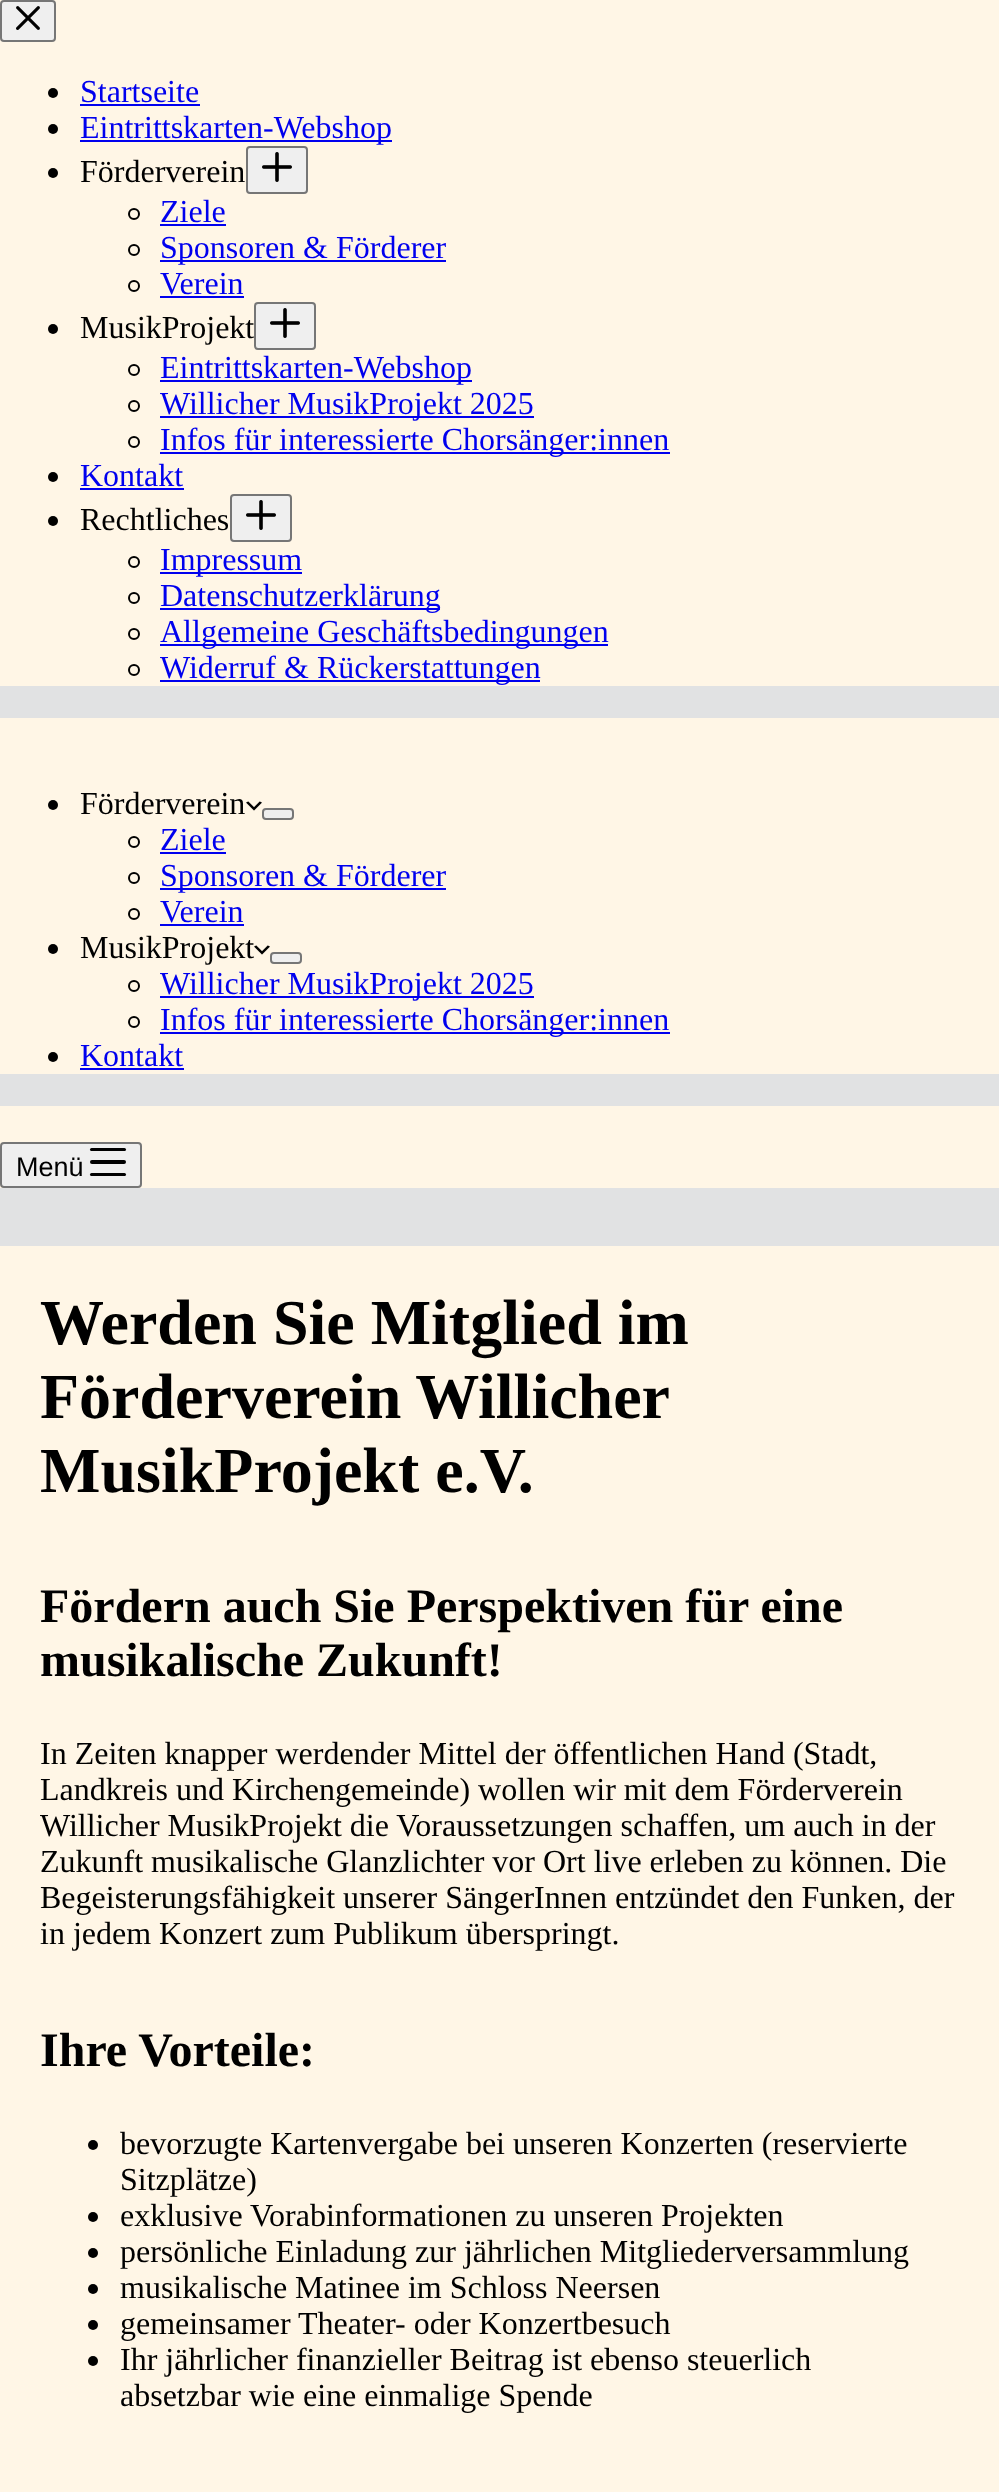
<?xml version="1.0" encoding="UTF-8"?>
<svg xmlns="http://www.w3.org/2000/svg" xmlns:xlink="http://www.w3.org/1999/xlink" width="999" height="2492">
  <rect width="100%" height="100%" fill="#e1e2e3" />
  <rect width="999" height="686" fill="#fff6e6" />
  <rect x="1" y="1" width="54" height="40" rx="3" fill="#efefef" stroke="#767676" stroke-width="2" />
  <image x="16" y="6" width="24" height="24" xlink:href="image1.png" />
  <circle cx="53" cy="93" r="5" fill="#000000" />
  <rect x="80" y="104" width="120" height="2" fill="#0000ee" />
  <circle cx="53" cy="129" r="5" fill="#000000" />
  <rect x="80" y="140" width="312" height="2" fill="#0000ee" />
  <circle cx="53" cy="173" r="5" fill="#000000" />
  <rect x="247" y="147" width="60" height="46" rx="3" fill="#efefef" stroke="#767676" stroke-width="2" />
  <image x="262" y="152" width="30" height="30" xlink:href="image2.png" />
  <circle cx="134" cy="214" r="5" fill="none" stroke="#000000" stroke-width="2" />
  <rect x="160" y="224" width="66" height="2" fill="#0000ee" />
  <circle cx="134" cy="250" r="5" fill="none" stroke="#000000" stroke-width="2" />
  <rect x="160" y="260" width="286" height="2" fill="#0000ee" />
  <circle cx="134" cy="286" r="5" fill="none" stroke="#000000" stroke-width="2" />
  <rect x="160" y="296" width="84" height="2" fill="#0000ee" />
  <circle cx="53" cy="329" r="5" fill="#000000" />
  <circle cx="134" cy="370" r="5" fill="none" stroke="#000000" stroke-width="2" />
  <rect x="160" y="380" width="312" height="2" fill="#0000ee" />
  <circle cx="134" cy="406" r="5" fill="none" stroke="#000000" stroke-width="2" />
  <rect x="160" y="416" width="374" height="2" fill="#0000ee" />
  <circle cx="134" cy="442" r="5" fill="none" stroke="#000000" stroke-width="2" />
  <rect x="160" y="452" width="510" height="2" fill="#0000ee" />
  <circle cx="53" cy="477" r="5" fill="#000000" />
  <rect x="80" y="488" width="104" height="2" fill="#0000ee" />
  <circle cx="53" cy="521" r="5" fill="#000000" />
  <rect x="231" y="495" width="60" height="46" rx="3" fill="#efefef" stroke="#767676" stroke-width="2" />
  <image x="246" y="500" width="30" height="30" xlink:href="image2.png" />
  <circle cx="134" cy="562" r="5" fill="none" stroke="#000000" stroke-width="2" />
  <rect x="160" y="572" width="142" height="2" fill="#0000ee" />
  <circle cx="134" cy="598" r="5" fill="none" stroke="#000000" stroke-width="2" />
  <rect x="160" y="608" width="280" height="2" fill="#0000ee" />
  <circle cx="134" cy="634" r="5" fill="none" stroke="#000000" stroke-width="2" />
  <rect x="160" y="644" width="448" height="2" fill="#0000ee" />
  <circle cx="134" cy="670" r="5" fill="none" stroke="#000000" stroke-width="2" />
  <rect x="160" y="680" width="380" height="2" fill="#0000ee" />
  <rect y="718" width="999" height="356" fill="#fff6e6" />
  <circle cx="53" cy="805" r="5" fill="#000000" />
  <image x="246" y="801" width="16" height="10" xlink:href="image3.png" />
  <rect x="263" y="809" width="30" height="10" rx="3" fill="#efefef" stroke="#767676" stroke-width="2" />
  <circle cx="134" cy="842" r="5" fill="none" stroke="#000000" stroke-width="2" />
  <rect x="160" y="852" width="66" height="2" fill="#0000ee" />
  <circle cx="134" cy="878" r="5" fill="none" stroke="#000000" stroke-width="2" />
  <rect x="160" y="888" width="286" height="2" fill="#0000ee" />
  <circle cx="134" cy="914" r="5" fill="none" stroke="#000000" stroke-width="2" />
  <rect x="160" y="924" width="84" height="2" fill="#0000ee" />
  <circle cx="53" cy="949" r="5" fill="#000000" />
  <rect x="271" y="953" width="30" height="10" rx="3" fill="#efefef" stroke="#767676" stroke-width="2" />
  <circle cx="134" cy="986" r="5" fill="none" stroke="#000000" stroke-width="2" />
  <rect x="160" y="996" width="374" height="2" fill="#0000ee" />
  <circle cx="134" cy="1022" r="5" fill="none" stroke="#000000" stroke-width="2" />
  <rect x="160" y="1032" width="510" height="2" fill="#0000ee" />
  <circle cx="53" cy="1057" r="5" fill="#000000" />
  <rect x="80" y="1068" width="104" height="2" fill="#0000ee" />
  <rect y="1106" width="999" height="82" fill="#fff6e6" />
  <rect x="1" y="1143" width="140" height="44" rx="3" fill="#efefef" stroke="#767676" stroke-width="2" />
  <rect x="90" y="1148" width="36" height="3" rx="1.5" fill="#000000" />
  <rect x="90" y="1160" width="36" height="4" rx="2" fill="#000000" />
  <rect x="90" y="1173" width="36" height="3" rx="1.5" fill="#000000" />
  <rect y="1246" width="999" height="1246" fill="#fff6e6" />
  <circle cx="93" cy="2145" r="5" fill="#000000" />
  <circle cx="93" cy="2217" r="5" fill="#000000" />
  <circle cx="93" cy="2253" r="5" fill="#000000" />
  <circle cx="93" cy="2289" r="5" fill="#000000" />
  <circle cx="93" cy="2325" r="5" fill="#000000" />
  <circle cx="93" cy="2361" r="5" fill="#000000" />
  <text x="80" y="102" style="font-family: Liberation Serif; font-size: 32px; fill: #0000ee">Startseite</text>
  <text x="80" y="138" style="font-family: Liberation Serif; font-size: 32px; fill: #0000ee">Eintrittskarten-Webshop</text>
  <text x="80" y="182" style="font-family: Liberation Serif; font-size: 32px; fill: #000000">Förderverein</text>
  <text x="160" y="222" style="font-family: Liberation Serif; font-size: 32px; fill: #0000ee">Ziele</text>
  <text x="160" y="258" style="font-family: Liberation Serif; font-size: 32px; fill: #0000ee">Sponsoren &amp; Förderer</text>
  <text x="160" y="294" style="font-family: Liberation Serif; font-size: 32px; fill: #0000ee">Verein</text>
  <text x="80" y="338" style="font-family: Liberation Serif; font-size: 32px; fill: #000000">MusikProjekt</text>
  <rect x="255" y="303" width="60" height="46" rx="3" fill="#efefef" stroke="#767676" stroke-width="2" />
  <image x="270" y="308" width="30" height="30" xlink:href="image2.png" />
  <text x="160" y="378" style="font-family: Liberation Serif; font-size: 32px; fill: #0000ee">Eintrittskarten-Webshop</text>
  <text x="160" y="414" style="font-family: Liberation Serif; font-size: 32px; fill: #0000ee">Willicher MusikProjekt 2025</text>
  <text x="160" y="450" style="font-family: Liberation Serif; font-size: 32px; fill: #0000ee">Infos für interessierte Chorsänger:innen</text>
  <text x="80" y="486" style="font-family: Liberation Serif; font-size: 32px; fill: #0000ee">Kontakt</text>
  <text x="80" y="530" style="font-family: Liberation Serif; font-size: 32px; fill: #000000">Rechtliches</text>
  <text x="160" y="570" style="font-family: Liberation Serif; font-size: 32px; fill: #0000ee">Impressum</text>
  <text x="160" y="606" style="font-family: Liberation Serif; font-size: 32px; fill: #0000ee">Datenschutzerklärung</text>
  <text x="160" y="642" style="font-family: Liberation Serif; font-size: 32px; fill: #0000ee">Allgemeine Geschäftsbedingungen</text>
  <text x="160" y="678" style="font-family: Liberation Serif; font-size: 32px; fill: #0000ee">Widerruf &amp; Rückerstattungen</text>
  <text x="80" y="814" style="font-family: Liberation Serif; font-size: 32px; fill: #000000">Förderverein</text>
  <text x="160" y="850" style="font-family: Liberation Serif; font-size: 32px; fill: #0000ee">Ziele</text>
  <text x="160" y="886" style="font-family: Liberation Serif; font-size: 32px; fill: #0000ee">Sponsoren &amp; Förderer</text>
  <text x="160" y="922" style="font-family: Liberation Serif; font-size: 32px; fill: #0000ee">Verein</text>
  <text x="80" y="958" style="font-family: Liberation Serif; font-size: 32px; fill: #000000">MusikProjekt</text>
  <image x="254" y="945" width="16" height="10" xlink:href="image3.png" />
  <text x="160" y="994" style="font-family: Liberation Serif; font-size: 32px; fill: #0000ee">Willicher MusikProjekt 2025</text>
  <text x="160" y="1030" style="font-family: Liberation Serif; font-size: 32px; fill: #0000ee">Infos für interessierte Chorsänger:innen</text>
  <text x="80" y="1066" style="font-family: Liberation Serif; font-size: 32px; fill: #0000ee">Kontakt</text>
  <text x="16" y="1176" style="font-family: Liberation Sans; font-size: 27px; fill: #000000">Menü</text>
  <text x="40" y="1344" style="font-family: Liberation Serif; font-size: 64px; font-weight: bold; fill: #000000">Werden Sie Mitglied im</text>
  <text x="40" y="1418" word-spacing="-1" style="font-family: Liberation Serif; font-size: 64px; font-weight: bold; fill: #000000">Förderverein Willicher</text>
  <text x="40" y="1492" style="font-family: Liberation Serif; font-size: 64px; font-weight: bold; fill: #000000">MusikProjekt e.V.</text>
  <text x="40" y="1622" style="font-family: Liberation Serif; font-size: 48px; font-weight: bold; fill: #000000">Fördern auch Sie Perspektiven für eine</text>
  <text x="40" y="1676" style="font-family: Liberation Serif; font-size: 48px; font-weight: bold; fill: #000000">musikalische Zukunft!</text>
  <text x="40" y="1764" style="font-family: Liberation Serif; font-size: 32px; fill: #000000">In Zeiten knapper werdender Mittel der öffentlichen Hand (Stadt,</text>
  <text x="40" y="1800" style="font-family: Liberation Serif; font-size: 32px; fill: #000000">Landkreis und Kirchengemeinde) wollen wir mit dem Förderverein</text>
  <text x="40" y="1836" style="font-family: Liberation Serif; font-size: 32px; fill: #000000">Willicher MusikProjekt die Voraussetzungen schaffen, um auch in der</text>
  <text x="40" y="1872" style="font-family: Liberation Serif; font-size: 32px; fill: #000000">Zukunft musikalische Glanzlichter vor Ort live erleben zu können. Die</text>
  <text x="40" y="1908" style="font-family: Liberation Serif; font-size: 32px; fill: #000000">Begeisterungsfähigkeit unserer SängerInnen entzündet den Funken, der</text>
  <text x="40" y="1944" style="font-family: Liberation Serif; font-size: 32px; fill: #000000">in jedem Konzert zum Publikum überspringt.</text>
  <text x="40" y="2066" style="font-family: Liberation Serif; font-size: 48px; font-weight: bold; fill: #000000">Ihre Vorteile:</text>
  <text x="120" y="2154" style="font-family: Liberation Serif; font-size: 32px; fill: #000000">bevorzugte Kartenvergabe bei unseren Konzerten (reservierte</text>
  <text x="120" y="2190" style="font-family: Liberation Serif; font-size: 32px; fill: #000000">Sitzplätze)</text>
  <text x="120" y="2226" style="font-family: Liberation Serif; font-size: 32px; fill: #000000">exklusive Vorabinformationen zu unseren Projekten</text>
  <text x="120" y="2262" style="font-family: Liberation Serif; font-size: 32px; fill: #000000">persönliche Einladung zur jährlichen Mitgliederversammlung</text>
  <text x="120" y="2298" style="font-family: Liberation Serif; font-size: 32px; fill: #000000">musikalische Matinee im Schloss Neersen</text>
  <text x="120" y="2334" style="font-family: Liberation Serif; font-size: 32px; fill: #000000">gemeinsamer Theater- oder Konzertbesuch</text>
  <text x="120" y="2370" style="font-family: Liberation Serif; font-size: 32px; fill: #000000">Ihr jährlicher finanzieller Beitrag ist ebenso steuerlich</text>
  <text x="120" y="2406" style="font-family: Liberation Serif; font-size: 32px; fill: #000000">absetzbar wie eine einmalige Spende</text>
</svg>
